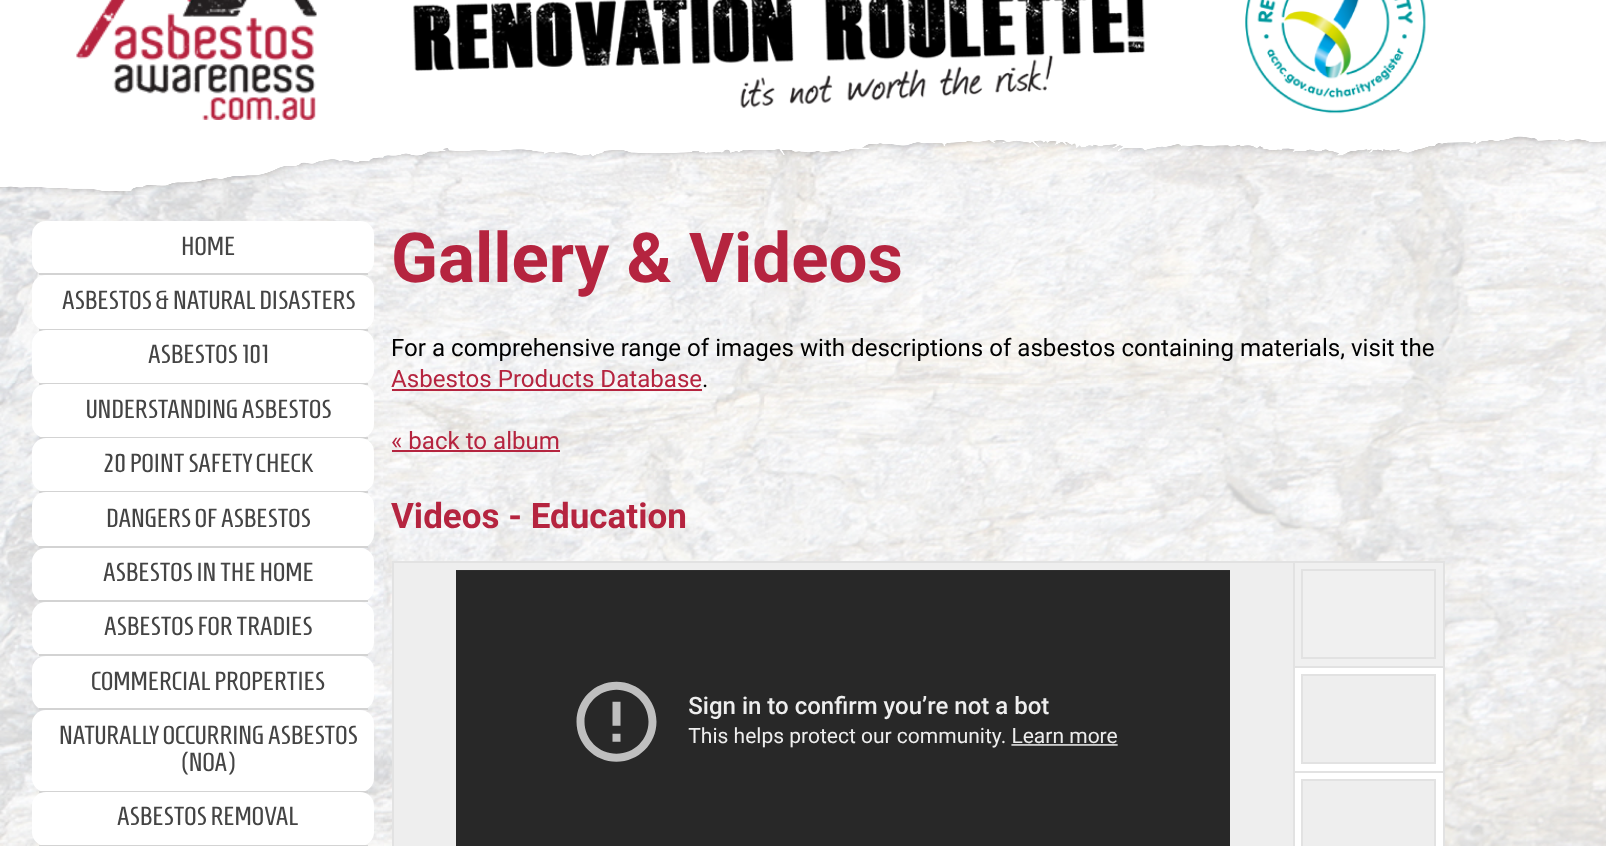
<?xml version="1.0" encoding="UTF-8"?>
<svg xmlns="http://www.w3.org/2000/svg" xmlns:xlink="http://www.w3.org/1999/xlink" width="1606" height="846">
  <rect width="100%" height="100%" fill="#ffffff" />
  <image x="0" y="136" width="1606" height="710" xlink:href="image1.png" />
  <image x="0" y="0" width="1606" height="195" xlink:href="image2.png" />
  <image x="76" y="0" width="241" height="120" xlink:href="image3.png" />
  <image x="413" y="0" width="1013" height="114" xlink:href="image4.png" />
  <rect x="32" y="221" width="342" height="54" rx="14" fill="#ffffff" />
  <rect x="39" y="273" width="329" height="2" fill="#d3d3d3" />
  <rect x="32" y="275" width="342" height="55" rx="14" fill="#ffffff" />
  <rect x="39" y="329" width="329" height="2" fill="#d3d3d3" />
  <rect x="32" y="330" width="342" height="54" rx="14" fill="#ffffff" />
  <rect x="39" y="383" width="329" height="2" fill="#d3d3d3" />
  <rect x="32" y="384" width="342" height="54" rx="14" fill="#ffffff" />
  <rect x="39" y="437" width="329" height="2" fill="#d3d3d3" />
  <rect x="32" y="438" width="342" height="54" rx="14" fill="#ffffff" />
  <rect x="39" y="491" width="329" height="2" fill="#d3d3d3" />
  <rect x="32" y="492" width="342" height="56" rx="14" fill="#ffffff" />
  <rect x="39" y="546" width="329" height="2" fill="#d3d3d3" />
  <rect x="32" y="548" width="342" height="54" rx="14" fill="#ffffff" />
  <rect x="39" y="600" width="329" height="2" fill="#d3d3d3" />
  <rect x="32" y="602" width="342" height="54" rx="14" fill="#ffffff" />
  <rect x="39" y="654" width="329" height="2" fill="#d3d3d3" />
  <rect x="32" y="656" width="342" height="54" rx="14" fill="#ffffff" />
  <rect x="39" y="708" width="329" height="2" fill="#d3d3d3" />
  <rect x="32" y="710" width="342" height="82" rx="14" fill="#ffffff" />
  <rect x="39" y="791" width="329" height="2" fill="#d3d3d3" />
  <rect x="32" y="792" width="342" height="54" rx="14" fill="#ffffff" />
  <rect x="39" y="845" width="329" height="1" fill="#d3d3d3" />
  <rect x="392" y="389" width="310" height="2" fill="#b5243f" />
  <rect x="392" y="450" width="168" height="2" fill="#b5243f" />
  <rect x="394" y="563" width="899" height="283" fill="#eeeeee" />
  <rect x="393" y="562" width="1051" height="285" fill="none" stroke="#e2e2e2" stroke-width="2" />
  <image x="456" y="570" width="774" height="276" xlink:href="image5.png" />
  <rect x="1295" y="563" width="148" height="103" fill="#f0f0f0" />
  <rect x="1293" y="563" width="2" height="103" fill="#e2e2e2" />
  <rect x="1302" y="570" width="133" height="88" fill="none" stroke="#e2e2e2" stroke-width="2" />
  <rect x="1295" y="668" width="148" height="103" fill="#ffffff" />
  <rect x="1293" y="666" width="150" height="2" fill="#e2e2e2" />
  <rect x="1293" y="666" width="2" height="105" fill="#e2e2e2" />
  <rect x="1302" y="675" width="133" height="88" fill="#eeeeee" stroke="#e2e2e2" stroke-width="2" />
  <rect x="1295" y="773" width="148" height="73" fill="#ffffff" />
  <rect x="1293" y="771" width="150" height="2" fill="#e2e2e2" />
  <rect x="1293" y="771" width="2" height="75" fill="#e2e2e2" />
  <rect x="1302" y="780" width="133" height="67" fill="#eeeeee" stroke="#e2e2e2" stroke-width="2" />
  <text x="181" y="255" style="font-family: Homenaje; font-size: 26px; fill: #444444">HOME</text>
  <text x="62" y="309" style="font-family: Homenaje; font-size: 26px; fill: #444444">ASBESTOS &amp; NATURAL DISASTERS</text>
  <text x="148" y="363" style="font-family: Homenaje; font-size: 26px; fill: #444444">ASBESTOS 101</text>
  <text x="86" y="418" style="font-family: Homenaje; font-size: 26px; fill: #444444">UNDERSTANDING ASBESTOS</text>
  <text x="103" y="472" style="font-family: Homenaje; font-size: 26px; fill: #444444">20 POINT SAFETY CHECK</text>
  <text x="106" y="527" style="font-family: Homenaje; font-size: 26px; fill: #444444">DANGERS OF ASBESTOS</text>
  <text x="103" y="581" style="font-family: Homenaje; font-size: 26px; fill: #444444">ASBESTOS IN THE HOME</text>
  <text x="104" y="635" style="font-family: Homenaje; font-size: 26px; fill: #444444">ASBESTOS FOR TRADIES</text>
  <text x="91" y="690" style="font-family: Homenaje; font-size: 26px; fill: #444444">COMMERCIAL PROPERTIES</text>
  <text x="59" y="744" style="font-family: Homenaje; font-size: 26px; fill: #444444">NATURALLY OCCURRING ASBESTOS</text>
  <text x="181" y="771" style="font-family: Homenaje; font-size: 26px; fill: #444444">(NOA)</text>
  <text x="117" y="825" style="font-family: Homenaje; font-size: 26px; fill: #444444">ASBESTOS REMOVAL</text>
  <text x="391" y="282" style="font-family: Roboto; font-size: 69px; font-weight: bold; fill: #b5243f">Gallery &amp; Videos</text>
  <text x="391" y="356" style="font-family: Roboto; font-size: 24.1px; fill: #000000">For a comprehensive range of images with descriptions of asbestos containing materials, visit the</text>
  <text x="391" y="387" style="font-family: Roboto; font-size: 24.1px; fill: #b5243f">Asbestos Products Database</text>
  <text x="702" y="387" style="font-family: Roboto; font-size: 24.1px; fill: #000000">.</text>
  <text x="391" y="449" style="font-family: Roboto; font-size: 24.1px; fill: #b5243f">« back to album</text>
  <text x="391" y="528" style="font-family: Roboto; font-size: 35px; font-weight: bold; fill: #b5243f">Videos - Education</text>
</svg>
